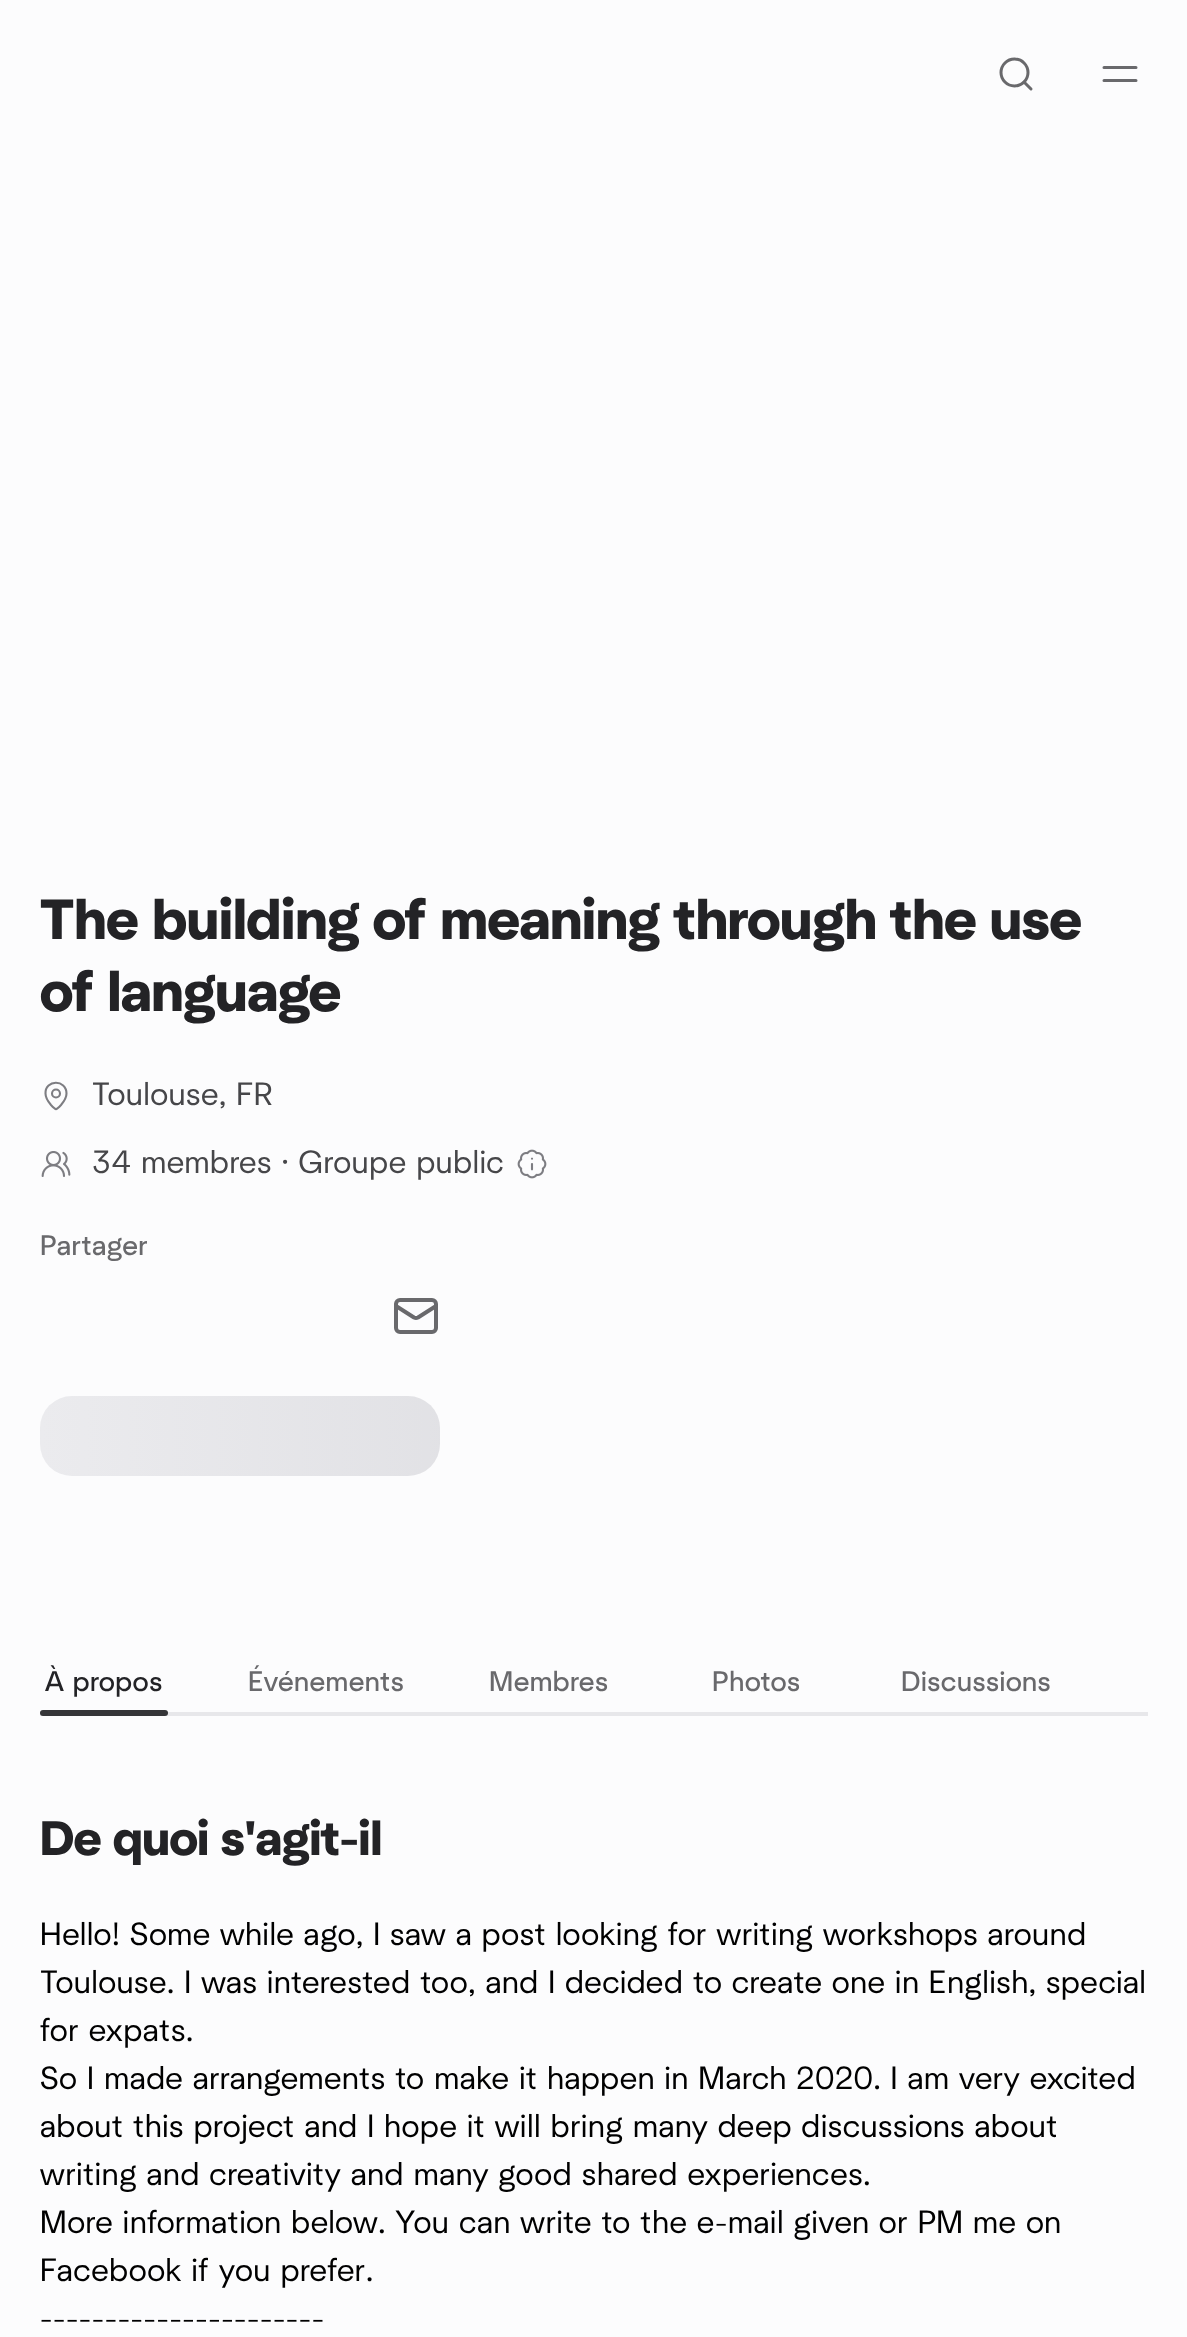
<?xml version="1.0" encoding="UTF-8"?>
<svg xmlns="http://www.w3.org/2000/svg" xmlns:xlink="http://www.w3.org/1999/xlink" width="1187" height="2337">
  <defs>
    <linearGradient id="g1" gradientUnits="userSpaceOnUse" x1="40" y1="1436" x2="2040" y2="1436"><stop offset="0" stop-color="#ebebee" /><stop offset="0.3" stop-color="#dddde1" /><stop offset="0.6" stop-color="#ebebee" /></linearGradient>
  </defs>
  <rect width="100%" height="100%" fill="#fcfcfd" />
  <path d="M 1031 89 l -7 -7" fill="none" stroke="#69696c" stroke-width="3" stroke-linecap="round" stroke-linejoin="round" />
  <circle cx="1014.5" cy="72.5" r="13.5" fill="none" stroke="#69696c" stroke-width="3" />
  <path d="M 1104 80.5 h 32 m -32 -13 h 32" fill="none" stroke="#69696c" stroke-width="3" stroke-linecap="round" stroke-linejoin="round" />
  <path d="M 66.5 1093.5 c 0 4 -2.5 8 -5.5 11.5 c -5 5.5 -5 5.5 -10 0 c -3 -3.5 -5.5 -7 -5.5 -11.5 c -0.5 -14 21 -14.5 21 0" fill="none" stroke="#7d7d82" stroke-width="2.1" stroke-linecap="round" stroke-linejoin="round" />
  <circle cx="56" cy="1093.5" r="4" fill="none" stroke="#7d7d82" stroke-width="2.1" />
  <image x="41" y="1151" width="30" height="26" xlink:href="image1.png" />
  <image x="517" y="1149" width="30" height="30" xlink:href="image2.png" />
  <path d="M 436 1306 l -18 11.5 c -1 0.5 -3 0.5 -4 0 l -18 -11.5" fill="none" stroke="#69696c" stroke-width="3.9" stroke-linecap="round" stroke-linejoin="round" />
  <rect x="396" y="1300" width="40" height="32" rx="4" fill="none" stroke="#69696c" stroke-width="4" />
  <rect x="40" y="1396" width="400" height="80" rx="32" fill="url(#g1)" />
  <rect x="40" y="1712" width="1108" height="4" fill="#e7e7ea" />
  <rect x="40" y="1710" width="128" height="6" rx="3" fill="#353538" />
  <text x="40" y="939" style="font-family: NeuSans; font-size: 56px; font-weight: bold; fill: #232326">The building of meaning through the use</text>
  <text x="40" y="1011" style="font-family: NeuSans; font-size: 56px; font-weight: bold; fill: #232326">of language</text>
  <text x="92" y="1105" style="font-family: NeuSans; font-size: 32px; letter-spacing: 0.65px; fill: #464649">Toulouse, FR</text>
  <text x="92" y="1173" style="font-family: NeuSans; font-size: 32px; letter-spacing: 0.65px; fill: #464649">34 membres · Groupe public</text>
  <text x="40" y="1255" style="font-family: 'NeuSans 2'; font-size: 28px; letter-spacing: 0.5px; fill: #69696c">Partager</text>
  <text x="45" y="1691" style="font-family: 'NeuSans 2'; font-size: 28px; letter-spacing: 0.5px; fill: #232326">À propos</text>
  <text x="248" y="1691" style="font-family: 'NeuSans 2'; font-size: 28px; letter-spacing: 0.5px; fill: #69696c">Événements</text>
  <text x="489" y="1691" style="font-family: 'NeuSans 2'; font-size: 28px; letter-spacing: 0.5px; fill: #69696c">Membres</text>
  <text x="712" y="1691" style="font-family: 'NeuSans 2'; font-size: 28px; letter-spacing: 0.5px; fill: #69696c">Photos</text>
  <text x="901" y="1691" style="font-family: 'NeuSans 2'; font-size: 28px; letter-spacing: 0.5px; fill: #69696c">Discussions</text>
  <text x="40" y="1855" style="font-family: NeuSans; font-size: 48px; font-weight: bold; fill: #232326">De quoi s'agit-il</text>
  <text x="40" y="1945" style="font-family: NeuSans; font-size: 32px; letter-spacing: 0.65px; fill: #000000">Hello! Some while ago, I saw a post looking for writing workshops around</text>
  <text x="40" y="1993" style="font-family: NeuSans; font-size: 32px; letter-spacing: 0.65px; fill: #000000">Toulouse. I was interested too, and I decided to create one in English, special</text>
  <text x="40" y="2041" style="font-family: NeuSans; font-size: 32px; letter-spacing: 0.65px; fill: #000000">for expats.</text>
  <text x="40" y="2089" style="font-family: NeuSans; font-size: 32px; letter-spacing: 0.65px; fill: #000000">So I made arrangements to make it happen in March 2020. I am very excited</text>
  <text x="40" y="2137" style="font-family: NeuSans; font-size: 32px; letter-spacing: 0.65px; fill: #000000">about this project and I hope it will bring many deep discussions about</text>
  <text x="40" y="2185" style="font-family: NeuSans; font-size: 32px; letter-spacing: 0.65px; fill: #000000">writing and creativity and many good shared experiences.</text>
  <text x="40" y="2233" style="font-family: NeuSans; font-size: 32px; letter-spacing: 0.65px; fill: #000000">More information below. You can write to the e-mail given or PM me on</text>
  <text x="40" y="2281" style="font-family: NeuSans; font-size: 32px; letter-spacing: 0.65px; fill: #000000">Facebook if you prefer.</text>
  <text x="40" y="2329" style="font-family: NeuSans; font-size: 32px; letter-spacing: 0.65px; fill: #000000">----------------------</text>
</svg>
